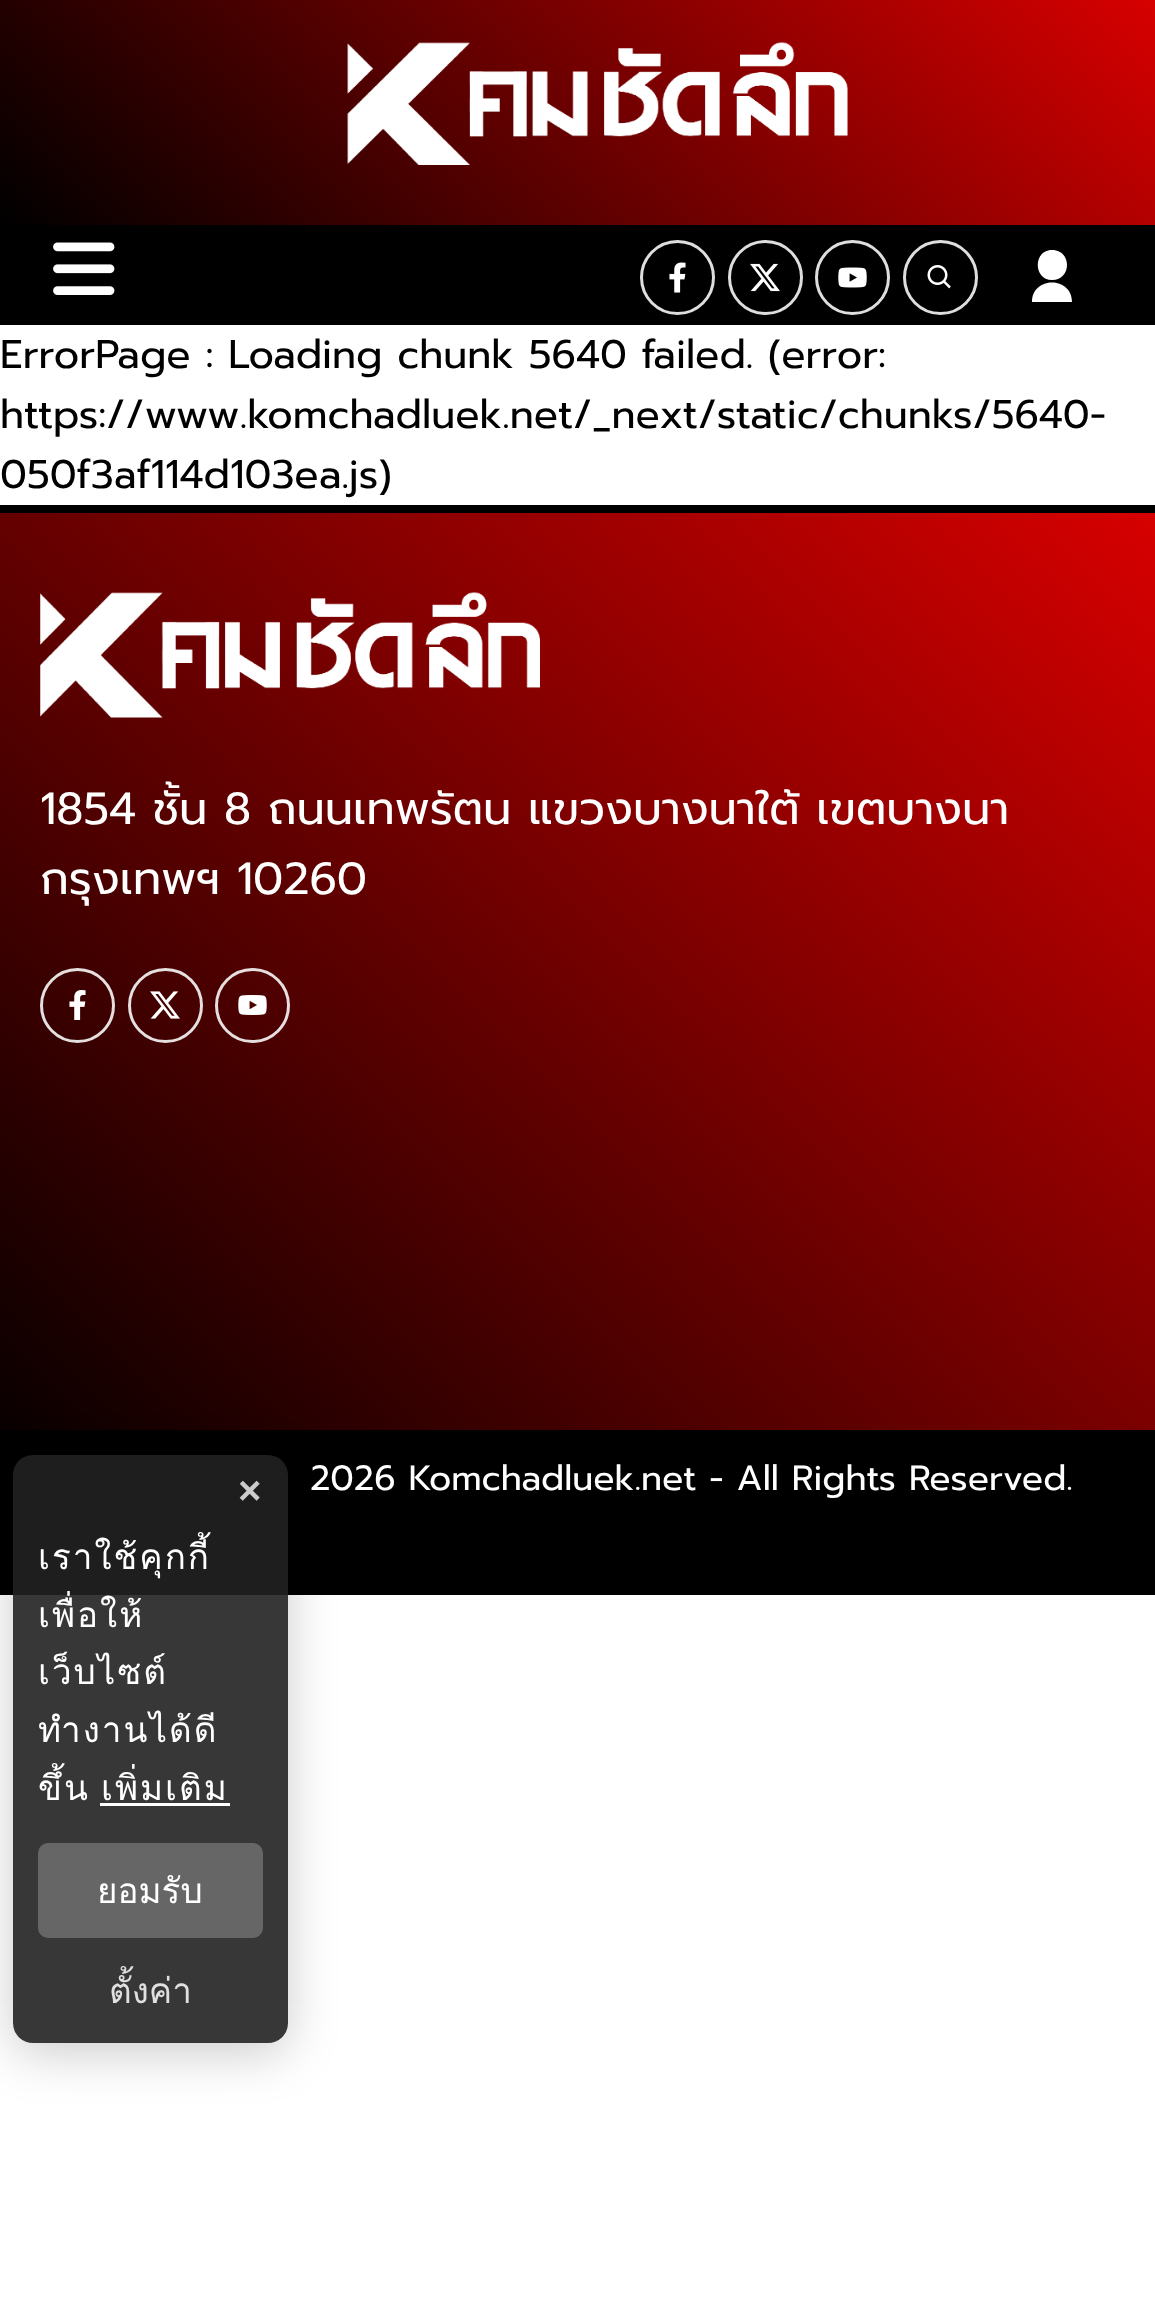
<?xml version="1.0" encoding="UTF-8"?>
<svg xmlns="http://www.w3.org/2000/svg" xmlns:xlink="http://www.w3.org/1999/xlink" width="1155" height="2316">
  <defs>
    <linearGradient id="g1" gradientUnits="userSpaceOnUse" x1="233" y1="458" x2="923" y2="-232"><stop offset="0" stop-color="#000000" /><stop offset="1" stop-color="#d70000" /></linearGradient>
    <linearGradient id="g2" gradientUnits="userSpaceOnUse" x1="37" y1="1557" x2="1118" y2="476"><stop offset="0" stop-color="#000000" /><stop offset="1" stop-color="#d70000" /></linearGradient>
    <clipPath id="clip1"><path d="M 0 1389 h 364 v 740 h -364 z m 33 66 h 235 c 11 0 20 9 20 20 v 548 c 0 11 -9 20 -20 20 h -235 c -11 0 -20 -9 -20 -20 v -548 c 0 -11 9 -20 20 -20 z" clip-rule="evenodd" /></clipPath>
  </defs>
  <rect width="100%" height="100%" fill="#ffffff" />
  <rect y="225" width="1155" height="100" fill="#000000" />
  <rect width="1155" height="225" fill="url(#g1)" />
  <image x="347" y="42" width="501" height="123" xlink:href="image1.png" />
  <image x="53" y="242" width="62" height="53" xlink:href="image2.png" />
  <circle cx="677.5" cy="277.5" r="36" fill="none" stroke="#dedede" stroke-width="3" />
  <image x="669" y="262" width="17" height="31" xlink:href="image3.png" />
  <circle cx="765.5" cy="277.5" r="36" fill="none" stroke="#dedede" stroke-width="3" />
  <image x="750" y="263" width="30" height="29" xlink:href="image4.png" />
  <circle cx="852.5" cy="277.5" r="36" fill="none" stroke="#dedede" stroke-width="3" />
  <image x="838" y="267" width="29" height="21" xlink:href="image5.png" />
  <circle cx="940.5" cy="277.5" r="36" fill="none" stroke="#dedede" stroke-width="3" />
  <image x="927" y="265" width="24" height="24" xlink:href="image6.png" />
  <path d="M 1032 302 c 0 -26 40 -26 40 0 z m 20 -22 c -19 0 -19 -30 0 -30 c 20 0 20 30 0 30 z" fill="#ffffff" />
  <rect y="513" width="1155" height="917" fill="url(#g2)" />
  <rect y="505" width="1155" height="8" fill="#000000" />
  <image x="40" y="592" width="500" height="126" xlink:href="image7.png" />
  <circle cx="77.5" cy="1005.5" r="36" fill="none" stroke="#f7f7f7" stroke-opacity="0.9" stroke-width="3" />
  <image x="69" y="990" width="17" height="30" xlink:href="image8.png" />
  <circle cx="165.5" cy="1005.5" r="36" fill="none" stroke="#f7f7f7" stroke-opacity="0.9" stroke-width="3" />
  <image x="150" y="991" width="30" height="28" xlink:href="image9.png" />
  <circle cx="252.5" cy="1005.5" r="36" fill="none" stroke="#f7f7f7" stroke-opacity="0.9" stroke-width="3" />
  <image x="238" y="995" width="29" height="20" xlink:href="image10.png" />
  <rect y="1430" width="1155" height="165" fill="#000000" />
  <g clip-path="url(#clip1)">
    <rect x="13" y="1465" width="275" height="588" rx="20" fill="#000000" fill-opacity="0.2" filter="blur(25px)" />
  </g>
  <rect x="13" y="1455" width="275" height="588" rx="20" fill="#212121" fill-opacity="0.9" />
  <rect x="100" y="1803" width="130" height="3" fill="#ffffff" />
  <rect x="38" y="1843" width="225" height="95" rx="10" fill="#666666" />
  <text x="0" y="368" style="font-family: Prompt; font-size: 40px; fill: #000000">ErrorPage : Loading chunk 5640 failed. (error:</text>
  <text x="0" y="428" style="font-family: Prompt; font-size: 40px; fill: #000000">https://www.komchadluek.net/_next/static/chunks/5640-</text>
  <text x="0" y="488" style="font-family: Prompt; font-size: 40px; fill: #000000">050f3af114d103ea.js)</text>
  <text x="40" y="824" style="font-family: Prompt; font-size: 45px; fill: #ffffff">1854 ชั้น 8 ถนนเทพรัตน แขวงบางนาใต้ เขตบางนา</text>
  <text x="40" y="894" style="font-family: Prompt; font-size: 45px; fill: #ffffff">กรุงเทพฯ 10260</text>
  <text x="310" y="1490" style="font-family: Prompt; font-size: 35px; fill: #ffffff">2026 Komchadluek.net - All Rights Reserved.</text>
  <text x="238" y="1504" style="font-family: Liberation Sans; font-size: 40px; font-weight: bold; fill: #cccccc">×</text>
  <text x="38" y="1569" style="font-family: Loma; font-size: 35px; letter-spacing: 2px; fill: #ffffff">เราใช้คุกกี้</text>
  <text x="38" y="1627" style="font-family: Loma; font-size: 35px; letter-spacing: 2px; fill: #ffffff">เพื่อให้</text>
  <text x="38" y="1684" style="font-family: Loma; font-size: 35px; letter-spacing: 2px; fill: #ffffff">เว็บไซต์</text>
  <text x="38" y="1742" style="font-family: Loma; font-size: 35px; letter-spacing: 2px; fill: #ffffff">ทำงานได้ดี</text>
  <text x="38" y="1800" style="font-family: Loma; font-size: 35px; letter-spacing: 2px; fill: #ffffff">ขึ้น</text>
  <text x="101" y="1800" style="font-family: Loma; font-size: 35px; letter-spacing: 2px; fill: #ffffff">เพิ่มเติม</text>
  <text x="97" y="1903" style="font-family: Loma; font-size: 35px; fill: #ffffff">ยอมรับ</text>
  <text x="109" y="2003" style="font-family: Loma; font-size: 35px; fill: #e0e0e0">ตั้งค่า</text>
</svg>
